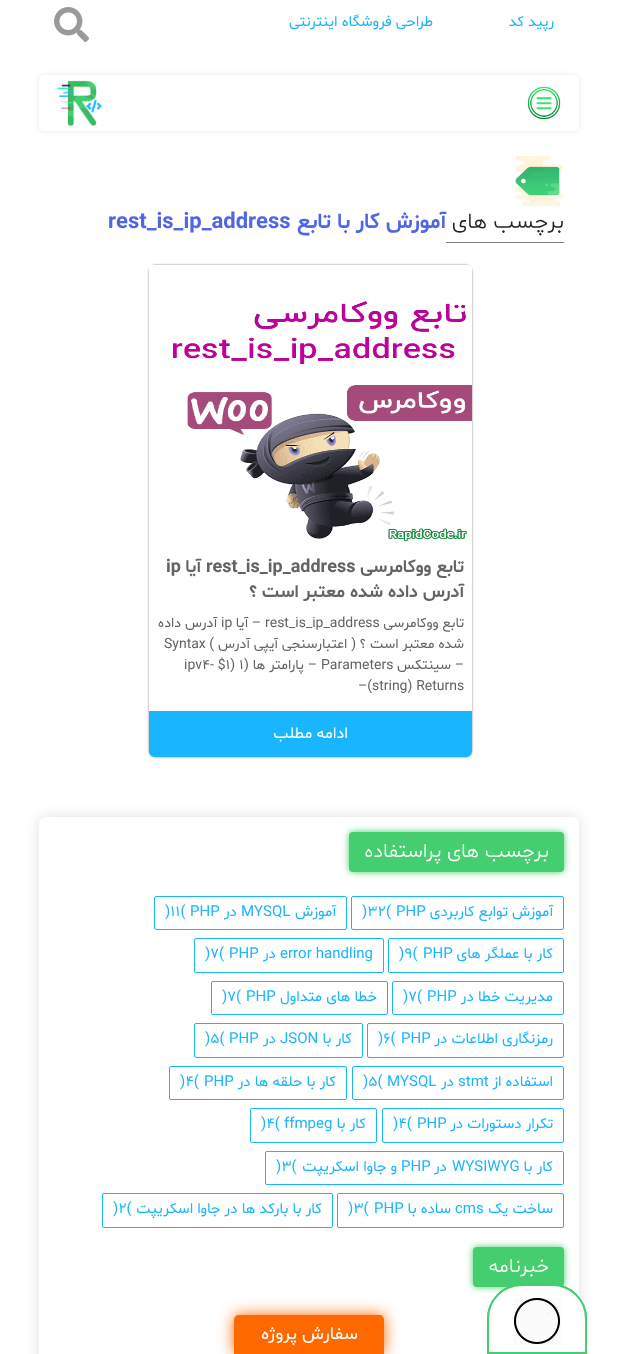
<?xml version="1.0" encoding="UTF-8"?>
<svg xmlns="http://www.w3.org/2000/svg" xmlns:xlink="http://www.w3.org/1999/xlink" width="618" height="1354">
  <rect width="100%" height="100%" fill="#ffffff" />
  <image x="54" y="7" width="35" height="35" xlink:href="image1.png" />
  <rect x="39" y="75" width="540" height="56" rx="5" fill="#e7e7e7" filter="blur(2.5px)" />
  <rect x="39" y="75" width="540" height="56" rx="5" fill="#ffffff" />
  <image x="527" y="86" width="34" height="34" xlink:href="image2.png" />
  <image x="56" y="80" width="47" height="46" xlink:href="image3.png" />
  <image x="514" y="156" width="50" height="50" xlink:href="image4.png" />
  <rect x="446" y="242" width="118" height="1" fill="#808080" />
  <rect x="149" y="265" width="323" height="492" rx="7" fill="#808080" filter="blur(1px)" />
  <path d="M 155 265 h 311 c 3.5 0 6 2.5 6 6 v 479 c 0 4 -3 7 -7 7 h -309 c -4 0 -7 -3 -7 -7 v -479 c 0 -3.5 2.5 -6 6 -6 z" fill="#ffffff" />
  <path d="M 153 265 h 315 c 2 0 4 2 4 4 v 269 c 0 4 -3 7 -7 7 h -309 c -4 0 -7 -3 -7 -7 v -269 c 0 -2 2 -4 4 -4 z" fill="#ffffff" />
  <image x="149" y="265" width="323" height="277" xlink:href="image5.png" />
  <path d="M 149 711 h 323 v 40 c 0 3.5 -2.5 6 -6 6 h -311 c -3.5 0 -6 -2.5 -6 -6 z" fill="#19b5fe" />
  <rect x="39" y="817" width="540" height="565" rx="7" fill="#e0dfdf" filter="blur(7px)" />
  <path d="M 46 817 h 526 c 4 0 7 3 7 7 v 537 h -540 v -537 c 0 -4 3 -7 7 -7 z" fill="#ffffff" />
  <rect x="349" y="832" width="215" height="40" rx="4" fill="#44ce6f" filter="blur(3.5px)" />
  <rect x="349" y="832" width="215" height="40" rx="4" fill="#44ce6f" />
  <rect x="351.5" y="896.5" width="212" height="33" rx="1.5" fill="none" stroke="#19b5fe" />
  <rect x="154.5" y="896.5" width="192" height="33" rx="1.5" fill="none" stroke="#19b5fe" />
  <rect x="388.5" y="938.5" width="175" height="34" rx="1.5" fill="none" stroke="#19b5fe" />
  <rect x="194.5" y="938.5" width="189" height="34" rx="1.5" fill="none" stroke="#19b5fe" />
  <rect x="392.5" y="981.5" width="171" height="33" rx="1.5" fill="none" stroke="#19b5fe" />
  <rect x="211.5" y="981.5" width="176" height="33" rx="1.5" fill="none" stroke="#19b5fe" />
  <rect x="367.5" y="1023.5" width="196" height="34" rx="1.5" fill="none" stroke="#19b5fe" />
  <rect x="194.5" y="1023.5" width="168" height="34" rx="1.5" fill="none" stroke="#19b5fe" />
  <rect x="352.5" y="1066.5" width="211" height="33" rx="1.5" fill="none" stroke="#19b5fe" />
  <rect x="169.5" y="1066.5" width="177" height="33" rx="1.5" fill="none" stroke="#19b5fe" />
  <rect x="382.5" y="1108.5" width="181" height="34" rx="1.5" fill="none" stroke="#19b5fe" />
  <rect x="250.5" y="1108.5" width="126" height="34" rx="1.5" fill="none" stroke="#19b5fe" />
  <rect x="265.5" y="1151.5" width="298" height="33" rx="1.5" fill="none" stroke="#19b5fe" />
  <rect x="337.5" y="1193.5" width="226" height="34" rx="1.5" fill="none" stroke="#19b5fe" />
  <rect x="102.5" y="1193.5" width="230" height="34" rx="1.5" fill="none" stroke="#19b5fe" />
  <rect x="473" y="1247" width="91" height="40" rx="4" fill="#44ce6f" filter="blur(3.5px)" />
  <rect x="473" y="1247" width="91" height="40" rx="4" fill="#44ce6f" />
  <path d="M 522 1285 h 30 c 19 0 34 15 34 34 v 34 h -98 v -34 c 0 -19 15 -34 34 -34 z" fill="none" stroke="#44ce6f" stroke-width="2" />
  <path d="M 522 1285 h 30 c 19 0 34 15 34 34 v 34 h -98 v -34 c 0 -19 15 -34 34 -34 z" fill="#ffffff" stroke="#44ce6f" stroke-width="2" />
  <image x="514" y="1298" width="47" height="46" xlink:href="image6.png" />
  <rect x="234" y="1315" width="150" height="39" rx="5" fill="#ff6900" filter="blur(7.5px)" />
  <path d="M 239 1315 h 140 c 3 0 5 2 5 5 v 34 h -150 v -34 c 0 -3 2 -5 5 -5 z" fill="#ff6900" />
  <text x="554" y="26" style="font-family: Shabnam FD; font-size: 15px; direction: rtl; fill: #19b5fe">رپید کد</text>
  <text x="433" y="26" style="font-family: Shabnam FD; font-size: 15px; direction: rtl; fill: #19b5fe">طراحی فروشگاه اینترنتی</text>
  <text x="564" y="228" style="font-family: Shabnam FD; font-size: 22px; font-weight: 300; direction: rtl; fill: #212529">برچسب های</text>
  <text x="446" y="228" style="font-family: Shabnam FD; font-size: 22px; font-weight: bold; direction: rtl; fill: #4f66e6">آموزش کار با تابع</text>
  <text x="108" y="228" style="font-family: Shabnam FD; font-size: 22px; font-weight: bold; fill: #4f66e6">rest_is_ip_address</text>
  <text x="464" y="572" style="font-family: Shabnam FD; font-size: 18px; font-weight: bold; direction: rtl; fill: #636363">تابع ووکامرسی</text>
  <text x="206" y="572" style="font-family: Shabnam FD; font-size: 18px; font-weight: bold; fill: #636363">rest_is_ip_address</text>
  <text x="201" y="572" style="font-family: Shabnam FD; font-size: 18px; font-weight: bold; direction: rtl; fill: #636363">آیا</text>
  <text x="166" y="572" style="font-family: Shabnam FD; font-size: 18px; font-weight: bold; fill: #636363">ip</text>
  <text x="464" y="597" style="font-family: Shabnam FD; font-size: 18px; font-weight: bold; direction: rtl; fill: #636363">آدرس داده شده معتبر است ؟</text>
  <text x="464" y="627" style="font-family: Shabnam FD; font-size: 14px; direction: rtl; fill: #636363">تابع ووکامرسی</text>
  <text x="265" y="627" style="font-family: Shabnam FD; font-size: 14px; fill: #636363">rest_is_ip_address</text>
  <text x="261" y="627" style="font-family: Shabnam FD; font-size: 14px; direction: rtl; fill: #636363">– آیا</text>
  <text x="221" y="627" style="font-family: Shabnam FD; font-size: 14px; fill: #636363">ip</text>
  <text x="217" y="627" style="font-family: Shabnam FD; font-size: 14px; direction: rtl; fill: #636363">آدرس داده</text>
  <text x="464" y="648" style="font-family: Shabnam FD; font-size: 14px; direction: rtl; fill: #636363">شده معتبر است ؟ ( اعتبارسنجی آیپی آدرس )</text>
  <text x="164" y="648" style="font-family: Shabnam FD; font-size: 14px; fill: #636363">Syntax</text>
  <text x="464" y="669" style="font-family: Shabnam FD; font-size: 14px; direction: rtl; fill: #636363">– سینتکس</text>
  <text x="321" y="669" style="font-family: Shabnam FD; font-size: 14px; fill: #636363">Parameters</text>
  <text x="317" y="669" style="font-family: Shabnam FD; font-size: 14px; direction: rtl; fill: #636363">– پارامتر ها (</text>
  <text x="184" y="669" style="font-family: Shabnam FD; font-size: 14px; fill: #636363">ipv4- $1) 1</text>
  <text x="358" y="690" style="font-family: Shabnam FD; font-size: 14px; fill: #636363">–(string) Returns</text>
  <text x="348" y="738" style="font-family: Shabnam FD; font-size: 16px; direction: rtl; fill: #ffffff">ادامه مطلب</text>
  <text x="549" y="857" style="font-family: Shabnam FD; font-size: 20px; font-weight: 300; direction: rtl; fill: #ffffff">برچسب های پراستفاده</text>
  <text x="553" y="916" style="font-family: Shabnam FD; font-size: 15px; direction: rtl; fill: #19b5fe">آموزش توابع کاربردی</text>
  <text x="396" y="916" style="font-family: Shabnam FD; font-size: 15px; fill: #19b5fe">PHP</text>
  <text x="362" y="916" style="font-family: Shabnam FD; font-size: 15px; fill: #19b5fe">)32(</text>
  <text x="336" y="916" style="font-family: Shabnam FD; font-size: 15px; direction: rtl; fill: #19b5fe">آموزش</text>
  <text x="241" y="916" style="font-family: Shabnam FD; font-size: 15px; fill: #19b5fe">MYSQL</text>
  <text x="237" y="916" style="font-family: Shabnam FD; font-size: 15px; direction: rtl; fill: #19b5fe">در</text>
  <text x="190" y="916" style="font-family: Shabnam FD; font-size: 15px; fill: #19b5fe">PHP</text>
  <text x="165" y="916" style="font-family: Shabnam FD; font-size: 15px; fill: #19b5fe">)11(</text>
  <text x="553" y="958" style="font-family: Shabnam FD; font-size: 15px; direction: rtl; fill: #19b5fe">کار با عملگر های</text>
  <text x="423" y="958" style="font-family: Shabnam FD; font-size: 15px; fill: #19b5fe">PHP</text>
  <text x="399" y="958" style="font-family: Shabnam FD; font-size: 15px; fill: #19b5fe">)9(</text>
  <text x="280" y="958" style="font-family: Shabnam FD; font-size: 15px; fill: #19b5fe">error handling</text>
  <text x="276" y="958" style="font-family: Shabnam FD; font-size: 15px; direction: rtl; fill: #19b5fe">در</text>
  <text x="229" y="958" style="font-family: Shabnam FD; font-size: 15px; fill: #19b5fe">PHP</text>
  <text x="205" y="958" style="font-family: Shabnam FD; font-size: 15px; fill: #19b5fe">)7(</text>
  <text x="553" y="1001" style="font-family: Shabnam FD; font-size: 15px; direction: rtl; fill: #19b5fe">مدیریت خطا در</text>
  <text x="427" y="1001" style="font-family: Shabnam FD; font-size: 15px; fill: #19b5fe">PHP</text>
  <text x="403" y="1001" style="font-family: Shabnam FD; font-size: 15px; fill: #19b5fe">)7(</text>
  <text x="377" y="1001" style="font-family: Shabnam FD; font-size: 15px; direction: rtl; fill: #19b5fe">خطا های متداول</text>
  <text x="246" y="1001" style="font-family: Shabnam FD; font-size: 15px; fill: #19b5fe">PHP</text>
  <text x="222" y="1001" style="font-family: Shabnam FD; font-size: 15px; fill: #19b5fe">)7(</text>
  <text x="553" y="1043" style="font-family: Shabnam FD; font-size: 15px; direction: rtl; fill: #19b5fe">رمزنگاری اطلاعات در</text>
  <text x="401" y="1043" style="font-family: Shabnam FD; font-size: 15px; fill: #19b5fe">PHP</text>
  <text x="378" y="1043" style="font-family: Shabnam FD; font-size: 15px; fill: #19b5fe">)6(</text>
  <text x="352" y="1043" style="font-family: Shabnam FD; font-size: 15px; direction: rtl; fill: #19b5fe">کار با</text>
  <text x="280" y="1043" style="font-family: Shabnam FD; font-size: 15px; fill: #19b5fe">JSON</text>
  <text x="276" y="1043" style="font-family: Shabnam FD; font-size: 15px; direction: rtl; fill: #19b5fe">در</text>
  <text x="229" y="1043" style="font-family: Shabnam FD; font-size: 15px; fill: #19b5fe">PHP</text>
  <text x="205" y="1043" style="font-family: Shabnam FD; font-size: 15px; fill: #19b5fe">)5(</text>
  <text x="553" y="1086" style="font-family: Shabnam FD; font-size: 15px; direction: rtl; fill: #19b5fe">استفاده از</text>
  <text x="458" y="1086" style="font-family: Shabnam FD; font-size: 15px; fill: #19b5fe">stmt</text>
  <text x="454" y="1086" style="font-family: Shabnam FD; font-size: 15px; direction: rtl; fill: #19b5fe">در</text>
  <text x="387" y="1086" style="font-family: Shabnam FD; font-size: 15px; fill: #19b5fe">MYSQL</text>
  <text x="363" y="1086" style="font-family: Shabnam FD; font-size: 15px; fill: #19b5fe">)5(</text>
  <text x="336" y="1086" style="font-family: Shabnam FD; font-size: 15px; direction: rtl; fill: #19b5fe">کار با حلقه ها در</text>
  <text x="204" y="1086" style="font-family: Shabnam FD; font-size: 15px; fill: #19b5fe">PHP</text>
  <text x="180" y="1086" style="font-family: Shabnam FD; font-size: 15px; fill: #19b5fe">)4(</text>
  <text x="553" y="1128" style="font-family: Shabnam FD; font-size: 15px; direction: rtl; fill: #19b5fe">تکرار دستورات در</text>
  <text x="417" y="1128" style="font-family: Shabnam FD; font-size: 15px; fill: #19b5fe">PHP</text>
  <text x="393" y="1128" style="font-family: Shabnam FD; font-size: 15px; fill: #19b5fe">)4(</text>
  <text x="366" y="1128" style="font-family: Shabnam FD; font-size: 15px; direction: rtl; fill: #19b5fe">کار با</text>
  <text x="284" y="1128" style="font-family: Shabnam FD; font-size: 15px; fill: #19b5fe">ffmpeg</text>
  <text x="261" y="1128" style="font-family: Shabnam FD; font-size: 15px; fill: #19b5fe">)4(</text>
  <text x="553" y="1171" style="font-family: Shabnam FD; font-size: 15px; direction: rtl; fill: #19b5fe">کار با</text>
  <text x="452" y="1171" style="font-family: Shabnam FD; font-size: 15px; fill: #19b5fe">WYSIWYG</text>
  <text x="447" y="1171" style="font-family: Shabnam FD; font-size: 15px; direction: rtl; fill: #19b5fe">در</text>
  <text x="401" y="1171" style="font-family: Shabnam FD; font-size: 15px; fill: #19b5fe">PHP</text>
  <text x="397" y="1171" style="font-family: Shabnam FD; font-size: 15px; direction: rtl; fill: #19b5fe">و جاوا اسکریپت</text>
  <text x="276" y="1171" style="font-family: Shabnam FD; font-size: 15px; fill: #19b5fe">)3(</text>
  <text x="553" y="1213" style="font-family: Shabnam FD; font-size: 15px; direction: rtl; fill: #19b5fe">ساخت یک</text>
  <text x="455" y="1213" style="font-family: Shabnam FD; font-size: 15px; fill: #19b5fe">cms</text>
  <text x="451" y="1213" style="font-family: Shabnam FD; font-size: 15px; direction: rtl; fill: #19b5fe">ساده با</text>
  <text x="374" y="1213" style="font-family: Shabnam FD; font-size: 15px; fill: #19b5fe">PHP</text>
  <text x="348" y="1213" style="font-family: Shabnam FD; font-size: 15px; fill: #19b5fe">)3(</text>
  <text x="322" y="1213" style="font-family: Shabnam FD; font-size: 15px; direction: rtl; fill: #19b5fe">کار با بارکد ها در جاوا اسکریپت</text>
  <text x="113" y="1213" style="font-family: Shabnam FD; font-size: 15px; fill: #19b5fe">)2(</text>
  <text x="549" y="1272" style="font-family: Shabnam FD; font-size: 20px; font-weight: 300; direction: rtl; fill: #ffffff">خبرنامه</text>
  <text x="358" y="1339" style="font-family: Shabnam FD; font-size: 18px; direction: rtl; fill: #ffffff">سفارش پروژه</text>
</svg>
